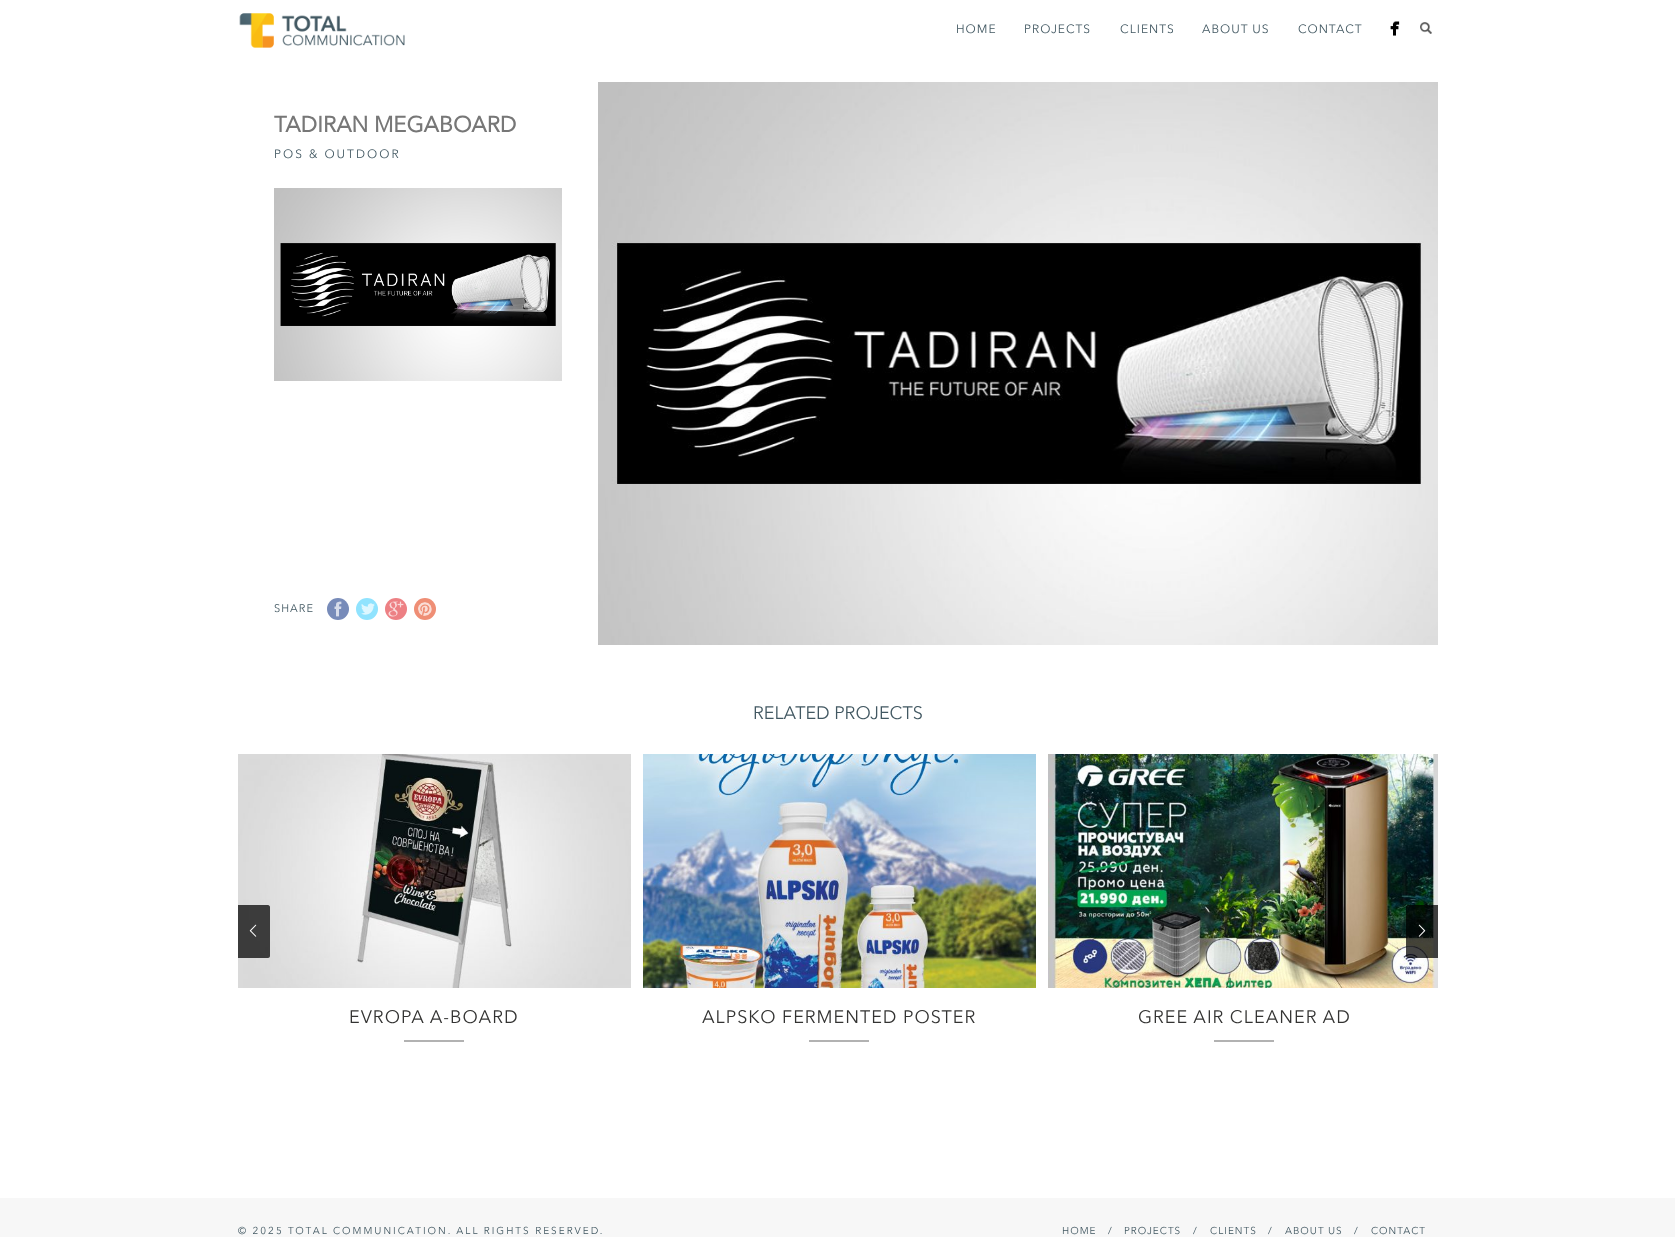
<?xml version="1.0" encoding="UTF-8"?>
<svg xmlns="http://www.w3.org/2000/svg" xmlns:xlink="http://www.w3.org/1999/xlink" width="1675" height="1237">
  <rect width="100%" height="100%" fill="#ffffff" />
  <image x="239" y="13" width="166" height="35" xlink:href="image1.png" />
  <image x="1390" y="21" width="10" height="15" xlink:href="image2.png" />
  <image x="1420" y="22" width="12" height="12" xlink:href="image3.png" />
  <image x="274" y="188" width="288" height="193" xlink:href="image4.png" />
  <circle cx="338" cy="609" r="11" fill="#778bb9" />
  <image x="334" y="601" width="8" height="16" xlink:href="image5.png" />
  <circle cx="367" cy="609" r="11" fill="#90e3fe" />
  <image x="361" y="603" width="14" height="12" xlink:href="image6.png" />
  <circle cx="396" cy="609" r="11" fill="#ed8084" />
  <image x="388" y="601" width="16" height="16" xlink:href="image7.png" />
  <circle cx="425" cy="609" r="11" fill="#ef8e75" />
  <image x="418" y="602" width="14" height="14" xlink:href="image8.png" />
  <image x="598" y="82" width="840" height="563" xlink:href="image9.png" />
  <image x="238" y="754" width="393" height="234" xlink:href="image12.png" />
  <path d="M 238 905 h 30 c 1 0 2 1 2 2 v 49 c 0 1 -1 2 -2 2 h -30 z" fill="#000000" fill-opacity="0.73" />
  <image x="249" y="924" width="8" height="13" xlink:href="image10.png" />
  <image x="1048" y="754" width="390" height="234" xlink:href="image14.png" />
  <path d="M 1408 905 h 30 v 53 h -30 c -1 0 -2 -1 -2 -2 v -49 c 0 -1 1 -2 2 -2 z" fill="#000000" fill-opacity="0.73" />
  <image x="1418" y="924" width="8" height="13" xlink:href="image11.png" />
  <rect x="404" y="1040" width="60" height="2" fill="#b2b2b2" />
  <image x="643" y="754" width="393" height="234" xlink:href="image13.png" />
  <rect x="809" y="1040" width="60" height="2" fill="#b2b2b2" />
  <rect x="1214" y="1040" width="60" height="2" fill="#b2b2b2" />
  <rect y="1198" width="1675" height="39" fill="#f7f7f7" />
  <text x="956" y="33" style="font-family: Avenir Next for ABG; font-size: 12px; letter-spacing: 1px; fill: #425862">HOME</text>
  <text x="1024" y="33" style="font-family: Avenir Next for ABG; font-size: 12px; letter-spacing: 1px; fill: #425862">PROJECTS</text>
  <text x="1120" y="33" style="font-family: Avenir Next for ABG; font-size: 12px; letter-spacing: 1px; fill: #425862">CLIENTS</text>
  <text x="1202" y="33" style="font-family: Avenir Next for ABG; font-size: 12px; letter-spacing: 1px; fill: #425862">ABOUT US</text>
  <text x="1298" y="33" style="font-family: Avenir Next for ABG; font-size: 12px; letter-spacing: 1px; fill: #425862">CONTACT</text>
  <text x="274" y="132" style="font-family: Avenir Next for ABG; font-size: 22px; font-weight: bold; fill: #777777">TADIRAN MEGABOARD</text>
  <text x="274" y="158" style="font-family: Avenir Next for ABG; font-size: 12px; letter-spacing: 2px; fill: #425862">POS &amp; OUTDOOR</text>
  <text x="274" y="612" style="font-family: Avenir Next for ABG; font-size: 11px; letter-spacing: 1px; fill: #425862">SHARE</text>
  <text x="753" y="719" style="font-family: Avenir Next for ABG; font-size: 18px; fill: #425862">RELATED PROJECTS</text>
  <text x="349" y="1023" style="font-family: Avenir Next for ABG; font-size: 18px; letter-spacing: 1px; fill: #333332">EVROPA A-BOARD</text>
  <text x="702" y="1023" style="font-family: Avenir Next for ABG; font-size: 18px; letter-spacing: 1px; fill: #333332">ALPSKO FERMENTED POSTER</text>
  <text x="1138" y="1023" style="font-family: Avenir Next for ABG; font-size: 18px; letter-spacing: 1px; fill: #333332">GREE AIR CLEANER AD</text>
  <text x="238" y="1234" style="font-family: Avenir Next for ABG; font-size: 10px; letter-spacing: 2px; fill: #425862">© 2025 TOTAL COMMUNICATION. ALL RIGHTS RESERVED.</text>
  <text x="1062" y="1234" style="font-family: Avenir Next for ABG; font-size: 10px; letter-spacing: 1px; fill: #425862">HOME</text>
  <text x="1108" y="1234" style="font-family: Avenir Next for ABG; font-size: 10px; letter-spacing: 1px; fill: #425862">/</text>
  <text x="1124" y="1234" style="font-family: Avenir Next for ABG; font-size: 10px; letter-spacing: 1px; fill: #425862">PROJECTS</text>
  <text x="1193" y="1234" style="font-family: Avenir Next for ABG; font-size: 10px; letter-spacing: 1px; fill: #425862">/</text>
  <text x="1210" y="1234" style="font-family: Avenir Next for ABG; font-size: 10px; letter-spacing: 1px; fill: #425862">CLIENTS</text>
  <text x="1268" y="1234" style="font-family: Avenir Next for ABG; font-size: 10px; letter-spacing: 1px; fill: #425862">/</text>
  <text x="1285" y="1234" style="font-family: Avenir Next for ABG; font-size: 10px; letter-spacing: 1px; fill: #425862">ABOUT US</text>
  <text x="1354" y="1234" style="font-family: Avenir Next for ABG; font-size: 10px; letter-spacing: 1px; fill: #425862">/</text>
  <text x="1371" y="1234" style="font-family: Avenir Next for ABG; font-size: 10px; letter-spacing: 1px; fill: #425862">CONTACT</text>
</svg>
